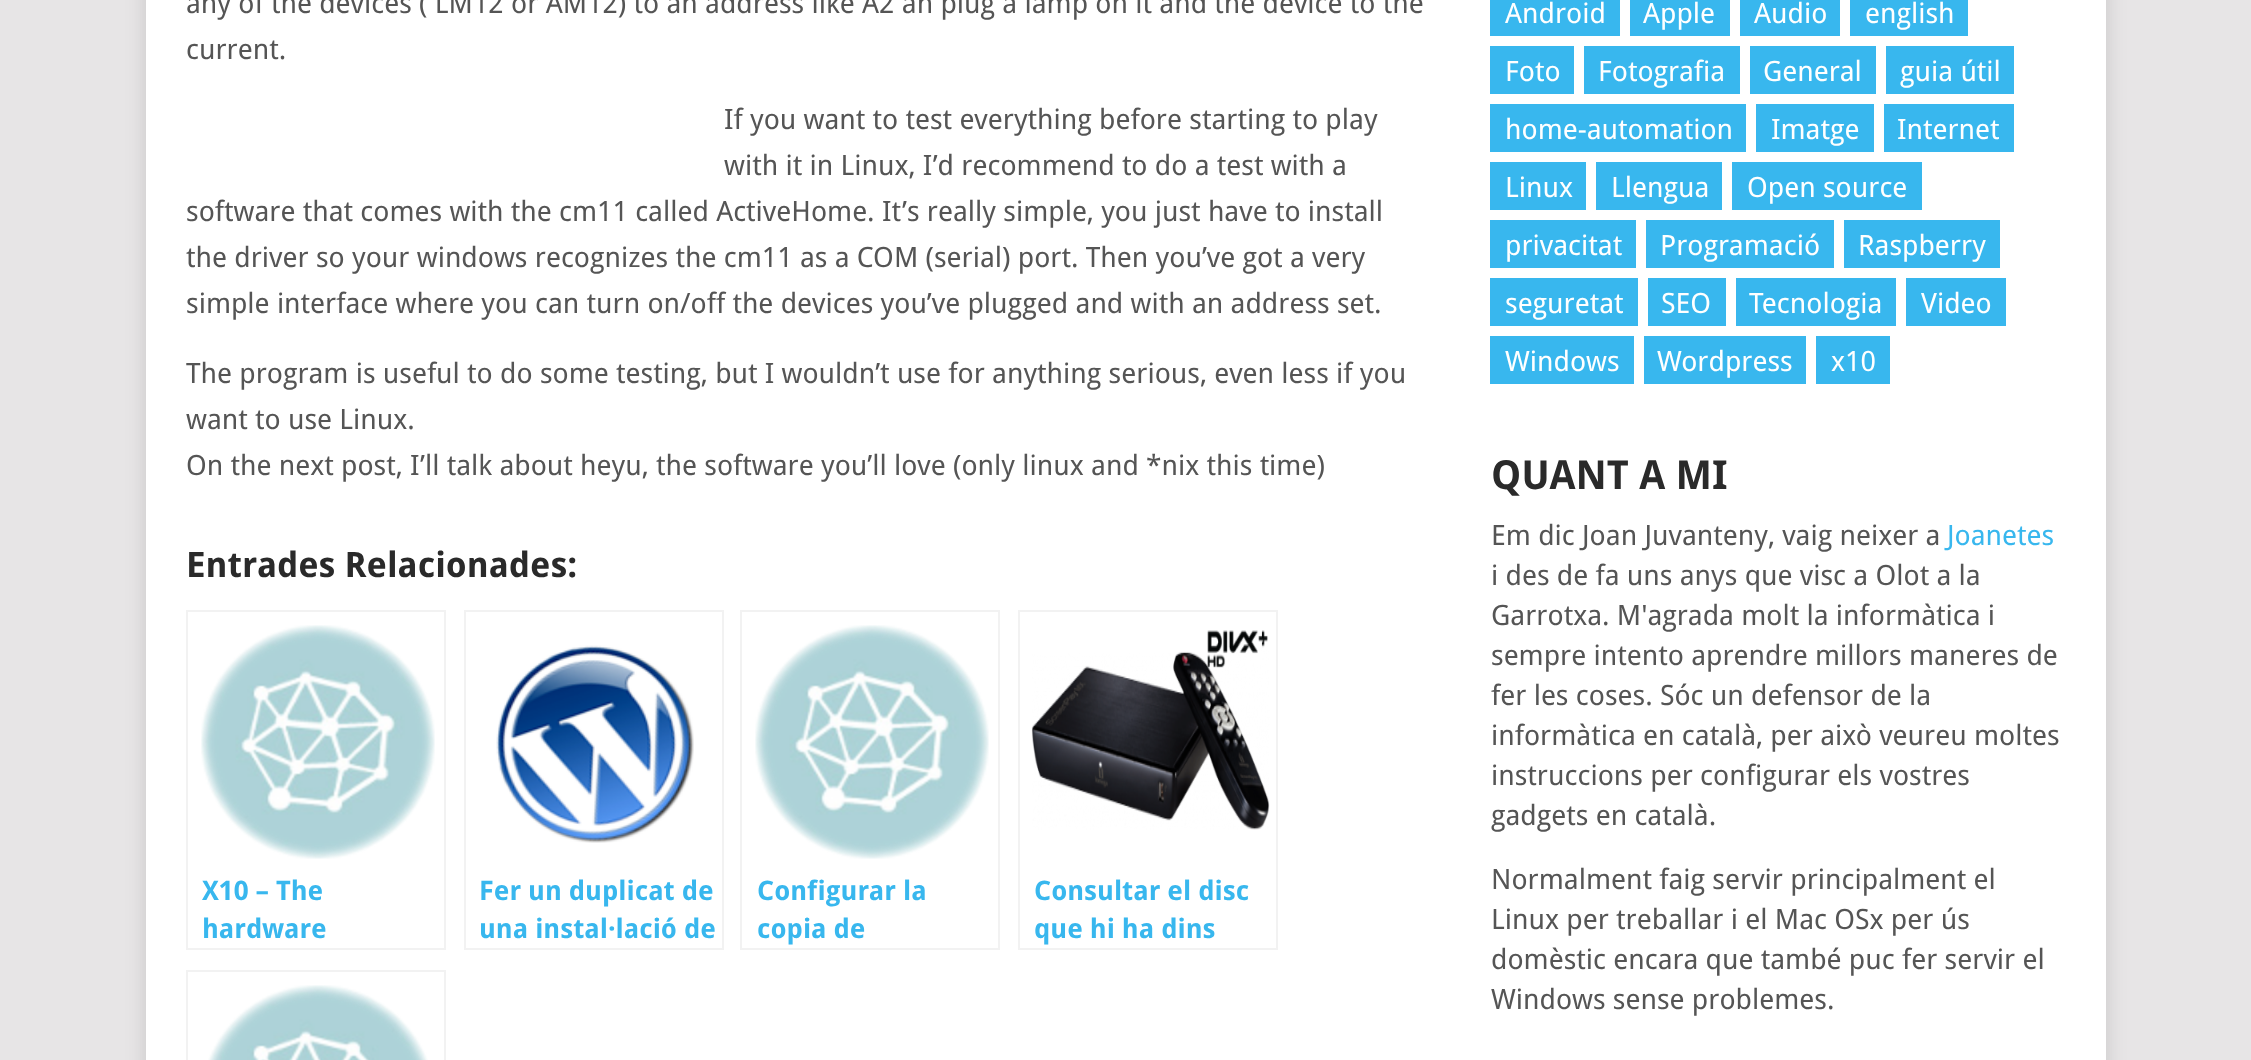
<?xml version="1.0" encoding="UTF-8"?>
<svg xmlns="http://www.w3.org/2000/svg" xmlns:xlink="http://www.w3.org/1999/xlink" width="2251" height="1060">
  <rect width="100%" height="100%" fill="#e7e5e6" />
  <rect x="146" y="-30" width="1960" height="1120" fill="#323232" fill-opacity="0.17" filter="blur(10px)" />
  <rect x="146" width="1960" height="1060" fill="#ffffff" />
  <rect x="187" y="611" width="258" height="338" fill="none" stroke="#f2f2f2" stroke-width="2" />
  <image x="201" y="625" width="234" height="234" xlink:href="image1.png" />
  <rect x="465" y="611" width="258" height="338" fill="none" stroke="#f2f2f2" stroke-width="2" />
  <image x="496" y="645" width="198" height="198" xlink:href="image2.png" />
  <rect x="741" y="611" width="258" height="338" fill="none" stroke="#f2f2f2" stroke-width="2" />
  <image x="755" y="625" width="234" height="234" xlink:href="image1.png" />
  <rect x="1019" y="611" width="258" height="338" fill="none" stroke="#f2f2f2" stroke-width="2" />
  <image x="1031" y="630" width="239" height="200" xlink:href="image3.png" />
  <rect x="187" y="971" width="258" height="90" fill="none" stroke="#f2f2f2" stroke-width="2" />
  <image x="208" y="985" width="220" height="75" xlink:href="image4.png" />
  <rect x="1490" width="130" height="36" fill="#38b7ee" />
  <rect x="1630" width="100" height="36" fill="#38b7ee" />
  <rect x="1740" width="100" height="36" fill="#38b7ee" />
  <rect x="1850" width="118" height="36" fill="#38b7ee" />
  <rect x="1490" y="46" width="84" height="48" fill="#38b7ee" />
  <rect x="1584" y="46" width="156" height="48" fill="#38b7ee" />
  <rect x="1750" y="46" width="126" height="48" fill="#38b7ee" />
  <rect x="1886" y="46" width="128" height="48" fill="#38b7ee" />
  <rect x="1490" y="104" width="256" height="48" fill="#38b7ee" />
  <rect x="1756" y="104" width="118" height="48" fill="#38b7ee" />
  <rect x="1884" y="104" width="130" height="48" fill="#38b7ee" />
  <rect x="1490" y="162" width="96" height="48" fill="#38b7ee" />
  <rect x="1596" y="162" width="126" height="48" fill="#38b7ee" />
  <rect x="1732" y="162" width="190" height="48" fill="#38b7ee" />
  <rect x="1490" y="220" width="146" height="48" fill="#38b7ee" />
  <rect x="1646" y="220" width="188" height="48" fill="#38b7ee" />
  <rect x="1844" y="220" width="156" height="48" fill="#38b7ee" />
  <rect x="1490" y="278" width="148" height="48" fill="#38b7ee" />
  <rect x="1648" y="278" width="78" height="48" fill="#38b7ee" />
  <rect x="1736" y="278" width="160" height="48" fill="#38b7ee" />
  <rect x="1906" y="278" width="100" height="48" fill="#38b7ee" />
  <rect x="1490" y="336" width="144" height="48" fill="#38b7ee" />
  <rect x="1644" y="336" width="162" height="48" fill="#38b7ee" />
  <rect x="1816" y="336" width="74" height="48" fill="#38b7ee" />
  <text x="186" y="13" style="font-family: Droid Sans; font-size: 28px; fill: #555555">any of the devices ( LM12 or AM12) to an address like A2 an plug a lamp on it and the device to the</text>
  <text x="186" y="59" style="font-family: Droid Sans; font-size: 28px; fill: #555555">current.</text>
  <text x="724" y="129" style="font-family: Droid Sans; font-size: 28px; fill: #555555">If you want to test everything before starting to play</text>
  <text x="724" y="175" style="font-family: Droid Sans; font-size: 28px; fill: #555555">with it in Linux, I’d recommend to do a test with a</text>
  <text x="186" y="221" style="font-family: Droid Sans; font-size: 28px; fill: #555555">software that comes with the cm11 called ActiveHome. It’s really simple, you just have to install</text>
  <text x="186" y="267" style="font-family: Droid Sans; font-size: 28px; fill: #555555">the driver so your windows recognizes the cm11 as a COM (serial) port. Then you’ve got a very</text>
  <text x="186" y="313" style="font-family: Droid Sans; font-size: 28px; fill: #555555">simple interface where you can turn on/off the devices you’ve plugged and with an address set.</text>
  <text x="186" y="383" style="font-family: Droid Sans; font-size: 28px; fill: #555555">The program is useful to do some testing, but I wouldn’t use for anything serious, even less if you</text>
  <text x="186" y="429" style="font-family: Droid Sans; font-size: 28px; fill: #555555">want to use Linux.</text>
  <text x="186" y="475" style="font-family: Droid Sans; font-size: 28px; fill: #555555">On the next post, I’ll talk about heyu, the software you’ll love (only linux and *nix this time)</text>
  <text x="186" y="577" style="font-family: Droid Sans; font-size: 35px; font-weight: bold; fill: #2a2a2a">Entrades Relacionades:</text>
  <text x="202" y="900" style="font-family: Droid Sans; font-size: 26.9px; font-weight: bold; fill: #38b7ee">X10 – The</text>
  <text x="202" y="938" style="font-family: Droid Sans; font-size: 26.9px; font-weight: bold; fill: #38b7ee">hardware</text>
  <text x="479" y="900" style="font-family: Droid Sans; font-size: 26.9px; font-weight: bold; fill: #38b7ee">Fer un duplicat de</text>
  <text x="479" y="938" style="font-family: Droid Sans; font-size: 26.9px; font-weight: bold; fill: #38b7ee">una instal·lació de</text>
  <text x="757" y="900" style="font-family: Droid Sans; font-size: 26.9px; font-weight: bold; fill: #38b7ee">Configurar la</text>
  <text x="757" y="938" style="font-family: Droid Sans; font-size: 26.9px; font-weight: bold; fill: #38b7ee">copia de</text>
  <text x="1034" y="900" style="font-family: Droid Sans; font-size: 26.9px; font-weight: bold; fill: #38b7ee">Consultar el disc</text>
  <text x="1034" y="938" style="font-family: Droid Sans; font-size: 26.9px; font-weight: bold; fill: #38b7ee">que hi ha dins</text>
  <text x="1505" y="23" style="font-family: Droid Sans; font-size: 28px; fill: #ffffff">Android</text>
  <text x="1643" y="23" style="font-family: Droid Sans; font-size: 28px; fill: #ffffff">Apple</text>
  <text x="1754" y="23" style="font-family: Droid Sans; font-size: 28px; fill: #ffffff">Audio</text>
  <text x="1865" y="23" style="font-family: Droid Sans; font-size: 28px; fill: #ffffff">english</text>
  <text x="1505" y="81" style="font-family: Droid Sans; font-size: 28px; fill: #ffffff">Foto</text>
  <text x="1598" y="81" style="font-family: Droid Sans; font-size: 28px; fill: #ffffff">Fotografia</text>
  <text x="1763" y="81" style="font-family: Droid Sans; font-size: 28px; fill: #ffffff">General</text>
  <text x="1900" y="81" style="font-family: Droid Sans; font-size: 28px; fill: #ffffff">guia útil</text>
  <text x="1505" y="139" style="font-family: Droid Sans; font-size: 28px; fill: #ffffff">home-automation</text>
  <text x="1771" y="139" style="font-family: Droid Sans; font-size: 28px; fill: #ffffff">Imatge</text>
  <text x="1897" y="139" style="font-family: Droid Sans; font-size: 28px; fill: #ffffff">Internet</text>
  <text x="1505" y="197" style="font-family: Droid Sans; font-size: 28px; fill: #ffffff">Linux</text>
  <text x="1611" y="197" style="font-family: Droid Sans; font-size: 28px; fill: #ffffff">Llengua</text>
  <text x="1747" y="197" style="font-family: Droid Sans; font-size: 28px; fill: #ffffff">Open source</text>
  <text x="1505" y="255" style="font-family: Droid Sans; font-size: 28px; fill: #ffffff">privacitat</text>
  <text x="1660" y="255" style="font-family: Droid Sans; font-size: 28px; fill: #ffffff">Programació</text>
  <text x="1858" y="255" style="font-family: Droid Sans; font-size: 28px; fill: #ffffff">Raspberry</text>
  <text x="1505" y="313" style="font-family: Droid Sans; font-size: 28px; fill: #ffffff">seguretat</text>
  <text x="1661" y="313" style="font-family: Droid Sans; font-size: 28px; fill: #ffffff">SEO</text>
  <text x="1749" y="313" style="font-family: Droid Sans; font-size: 28px; fill: #ffffff">Tecnologia</text>
  <text x="1921" y="313" style="font-family: Droid Sans; font-size: 28px; fill: #ffffff">Video</text>
  <text x="1505" y="371" style="font-family: Droid Sans; font-size: 28px; fill: #ffffff">Windows</text>
  <text x="1657" y="371" style="font-family: Droid Sans; font-size: 28px; fill: #ffffff">Wordpress</text>
  <text x="1831" y="371" style="font-family: Droid Sans; font-size: 28px; fill: #ffffff">x10</text>
  <text x="1491" y="489" style="font-family: Droid Sans; font-size: 40px; font-weight: bold; fill: #2a2a2a">QUANT A MI</text>
  <text x="1491" y="545" style="font-family: Droid Sans; font-size: 28px; fill: #555555">Em dic Joan Juvanteny, vaig neixer a</text>
  <text x="1947" y="545" style="font-family: Droid Sans; font-size: 28px; fill: #38b7ee">Joanetes</text>
  <text x="1491" y="585" style="font-family: Droid Sans; font-size: 28px; fill: #555555">i des de fa uns anys que visc a Olot a la</text>
  <text x="1491" y="625" style="font-family: Droid Sans; font-size: 28px; fill: #555555">Garrotxa. M'agrada molt la informàtica i</text>
  <text x="1491" y="665" style="font-family: Droid Sans; font-size: 28px; fill: #555555">sempre intento aprendre millors maneres de</text>
  <text x="1491" y="705" style="font-family: Droid Sans; font-size: 28px; fill: #555555">fer les coses. Sóc un defensor de la</text>
  <text x="1491" y="745" style="font-family: Droid Sans; font-size: 28px; fill: #555555">informàtica en català, per això veureu moltes</text>
  <text x="1491" y="785" style="font-family: Droid Sans; font-size: 28px; fill: #555555">instruccions per configurar els vostres</text>
  <text x="1491" y="825" style="font-family: Droid Sans; font-size: 28px; fill: #555555">gadgets en català.</text>
  <text x="1491" y="889" style="font-family: Droid Sans; font-size: 28px; fill: #555555">Normalment faig servir principalment el</text>
  <text x="1491" y="929" style="font-family: Droid Sans; font-size: 28px; fill: #555555">Linux per treballar i el Mac OSx per ús</text>
  <text x="1491" y="969" style="font-family: Droid Sans; font-size: 28px; fill: #555555">domèstic encara que també puc fer servir el</text>
  <text x="1491" y="1009" style="font-family: Droid Sans; font-size: 28px; fill: #555555">Windows sense problemes.</text>
</svg>
